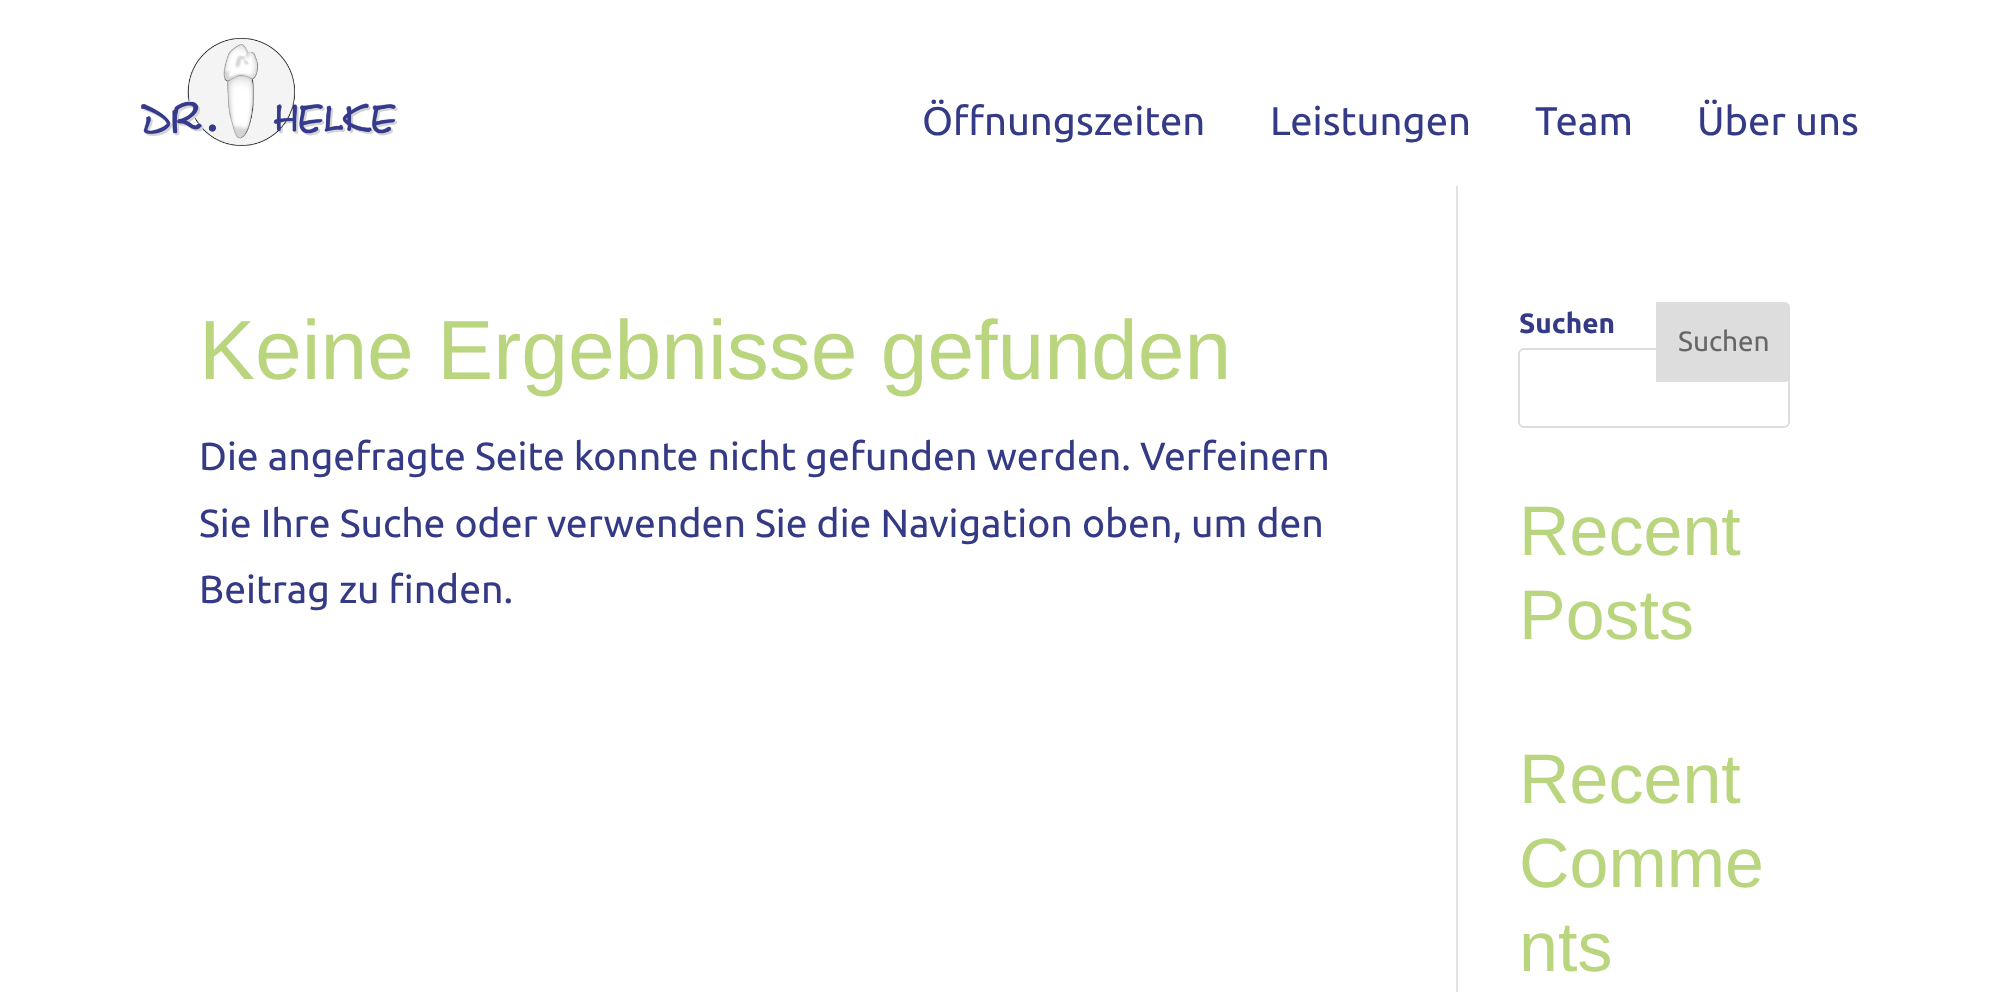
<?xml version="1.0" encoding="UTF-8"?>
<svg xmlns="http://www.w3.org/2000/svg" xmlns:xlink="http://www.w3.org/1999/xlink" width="1989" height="992">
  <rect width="100%" height="100%" fill="#ffffff" />
  <image x="141" y="38" width="257" height="108" xlink:href="image1.png" />
  <rect x="1456" y="186" width="2" height="806" fill="#e2e2e2" />
  <rect x="1519" y="349" width="270" height="78" rx="5" fill="none" stroke="#dddddd" stroke-width="2" />
  <path d="M 1657 303 h 127 c 3 0 5 2 5 5 v 68 c 0 3 -2 5 -5 5 h -127 z" fill="#dddddd" stroke="#dddddd" stroke-width="2" />
  <text x="922" y="135" style="font-family: Ubuntu; font-size: 40px; fill: #343a85">Öffnungszeiten</text>
  <text x="1270" y="135" style="font-family: Ubuntu; font-size: 40px; fill: #343a85">Leistungen</text>
  <text x="1535" y="135" style="font-family: Ubuntu; font-size: 40px; fill: #343a85">Team</text>
  <text x="1697" y="135" style="font-family: Ubuntu; font-size: 40px; fill: #343a85">Über uns</text>
  <text x="199" y="379" style="font-family: Liberation Sans; font-size: 84px; fill: #b9d57e">Keine Ergebnisse gefunden</text>
  <text x="199" y="470" style="font-family: Ubuntu; font-size: 39.2px; fill: #343a85">Die angefragte Seite konnte nicht gefunden werden. Verfeinern</text>
  <text x="199" y="537" style="font-family: Ubuntu; font-size: 39.2px; fill: #343a85">Sie Ihre Suche oder verwenden Sie die Navigation oben, um den</text>
  <text x="199" y="603" style="font-family: Ubuntu; font-size: 39.2px; fill: #343a85">Beitrag zu finden.</text>
  <text x="1519" y="333" style="font-family: Ubuntu; font-size: 28px; font-weight: bold; fill: #343a85">Suchen</text>
  <text x="1678" y="351" style="font-family: Ubuntu; font-size: 28px; fill: #666666">Suchen</text>
  <text x="1519" y="555" style="font-family: Liberation Sans; font-size: 70px; fill: #b9d57e">Recent</text>
  <text x="1519" y="639" style="font-family: Liberation Sans; font-size: 70px; fill: #b9d57e">Posts</text>
  <text x="1519" y="803" style="font-family: Liberation Sans; font-size: 70px; fill: #b9d57e">Recent</text>
  <text x="1519" y="887" style="font-family: Liberation Sans; font-size: 70px; fill: #b9d57e">Comme</text>
  <text x="1519" y="971" style="font-family: Liberation Sans; font-size: 70px; fill: #b9d57e">nts</text>
</svg>
